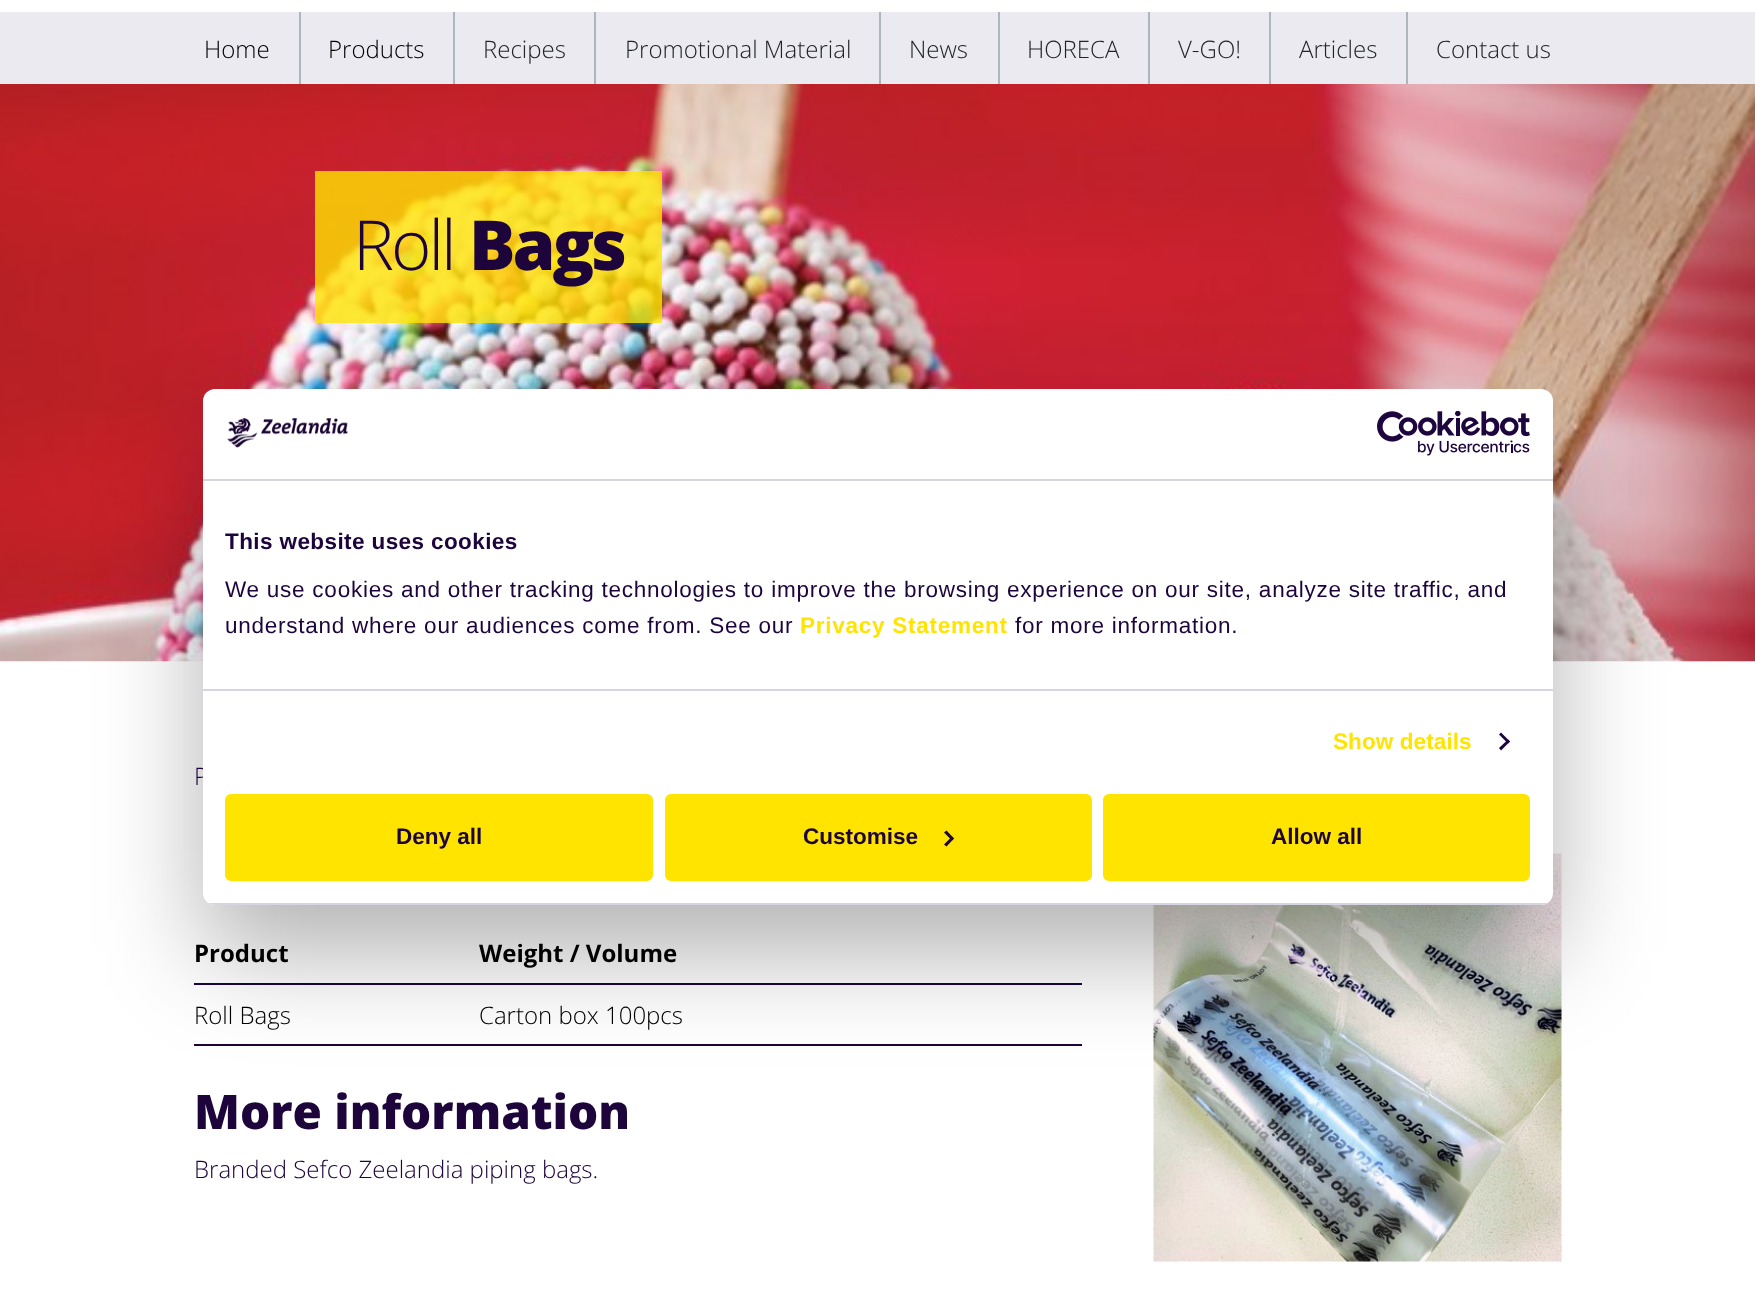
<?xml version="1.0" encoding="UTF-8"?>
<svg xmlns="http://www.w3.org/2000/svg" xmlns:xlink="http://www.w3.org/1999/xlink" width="1755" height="1291">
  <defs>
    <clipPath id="clip1"><rect x="203" y="389" width="1350" height="516" rx="12" /></clipPath>
  </defs>
  <rect width="100%" height="100%" fill="#ffffff" />
  <rect y="12" width="1755" height="72" fill="#ebeaf1" />
  <rect x="299" y="12" width="2" height="72" fill="#adb5bd" />
  <rect x="453" y="12" width="2" height="72" fill="#adb5bd" />
  <rect x="594" y="12" width="2" height="72" fill="#adb5bd" />
  <rect x="879" y="12" width="2" height="72" fill="#adb5bd" />
  <rect x="998" y="12" width="2" height="72" fill="#adb5bd" />
  <rect x="1148" y="12" width="2" height="72" fill="#adb5bd" />
  <rect x="1269" y="12" width="2" height="72" fill="#adb5bd" />
  <rect x="1406" y="12" width="2" height="72" fill="#adb5bd" />
  <image x="0" y="84" width="1755" height="578" xlink:href="image1.png" />
  <rect x="315" y="171" width="347" height="152" fill="#ffe402" fill-opacity="0.8" />
  <rect x="194" y="983" width="888" height="2" fill="#1d053c" />
  <rect x="194" y="1044" width="888" height="2" fill="#1d053c" />
  <image x="1153" y="853" width="409" height="409" xlink:href="image2.png" />
  <rect x="203" y="437" width="1350" height="516" rx="12" fill="#000000" fill-opacity="0.3" filter="blur(51px)" />
  <text x="204" y="58" style="font-family: Open Sans; font-size: 24px; font-weight: 300; fill: #000000">Home</text>
  <text x="328" y="58" style="font-family: Open Sans; font-size: 24px; font-weight: 300; fill: #000000">Products</text>
  <text x="483" y="58" style="font-family: Open Sans; font-size: 24px; font-weight: 300; fill: #212529">Recipes</text>
  <text x="625" y="58" style="font-family: Open Sans; font-size: 24px; font-weight: 300; fill: #212529">Promotional Material</text>
  <text x="909" y="58" style="font-family: Open Sans; font-size: 24px; font-weight: 300; fill: #212529">News</text>
  <text x="1027" y="58" style="font-family: Open Sans; font-size: 24px; font-weight: 300; fill: #212529">HORECA</text>
  <text x="1178" y="58" style="font-family: Open Sans; font-size: 24px; font-weight: 300; fill: #212529">V-GO!</text>
  <text x="1299" y="58" style="font-family: Open Sans; font-size: 24px; font-weight: 300; fill: #212529">Articles</text>
  <text x="1436" y="58" style="font-family: Open Sans; font-size: 24px; font-weight: 300; fill: #212529">Contact us</text>
  <text x="353" y="270" style="font-family: Open Sans; font-size: 69px; font-weight: 300; letter-spacing: -3px; fill: #1d053c">Roll</text>
  <text x="469" y="270" style="font-family: Open Sans; font-size: 69px; font-weight: 800; letter-spacing: -3px; fill: #1d053c">Bags</text>
  <text x="194" y="785" style="font-family: Open Sans; font-size: 24px; font-weight: 300; fill: #1d053c">P</text>
  <text x="194" y="962" style="font-family: Open Sans; font-size: 24px; font-weight: bold; fill: #000000">Product</text>
  <text x="479" y="962" style="font-family: Open Sans; font-size: 24px; font-weight: bold; fill: #000000">Weight / Volume</text>
  <text x="194" y="1024" style="font-family: Open Sans; font-size: 24px; font-weight: 300; fill: #000000">Roll Bags</text>
  <text x="479" y="1024" style="font-family: Open Sans; font-size: 24px; font-weight: 300; fill: #000000">Carton box 100pcs</text>
  <text x="194" y="1129" style="font-family: Open Sans; font-size: 47.5px; font-weight: 800; fill: #1d053c">More information</text>
  <text x="194" y="1178" style="font-family: Open Sans; font-size: 24px; font-weight: 300; fill: #1d053c">Branded Sefco Zeelandia piping bags.</text>
  <rect x="203" y="389" width="1350" height="516" rx="12" fill="#ffffff" />
  <rect x="203" y="479" width="1350" height="2" fill="#d7d5e2" />
  <image x="227" y="418" width="121" height="30" xlink:href="image3.png" />
  <image x="1377" y="411" width="153" height="45" xlink:href="image4.png" />
  <rect x="203" y="689" width="1350" height="2" fill="#d7d5e2" />
  <text x="225" y="549" style="font-family: Liberation Sans; font-size: 22.5px; font-weight: bold; letter-spacing: 0.4px; fill: #1d053c">This website uses cookies</text>
  <text x="225" y="597" style="font-family: Liberation Sans; font-size: 22.5px; letter-spacing: 0.75px; fill: #1d053c">We use cookies and other tracking technologies to improve the browsing experience on our site, analyze site traffic, and</text>
  <text x="225" y="633" style="font-family: Liberation Sans; font-size: 22.5px; letter-spacing: 0.75px; fill: #1d053c">understand where our audiences come from. See our</text>
  <text x="800" y="633" style="font-family: Liberation Sans; font-size: 22.5px; font-weight: bold; letter-spacing: 0.75px; fill: #ffe400">Privacy Statement</text>
  <text x="1015" y="633" style="font-family: Liberation Sans; font-size: 22.5px; letter-spacing: 0.75px; fill: #1d053c">for more information.</text>
  <text x="1333" y="749" style="font-family: Liberation Sans; font-size: 22.5px; font-weight: bold; letter-spacing: 0.1px; fill: #ffe400">Show details</text>
  <path d="M 1501 732.5 l 9 9 l -2 2 l -9 -9 z" fill="#1d053d" />
  <path d="M 1508 739.5 l 2 2 l -9 9 l -2 -2.5 z" fill="#1d053d" />
  <g clip-path="url(#clip1)">
    <rect x="203" y="903" width="1350" height="2" fill="#d7d5e2" />
  </g>
  <rect x="226.5" y="795.5" width="425" height="84" rx="4.5" fill="#ffe400" stroke="#ffe400" stroke-width="3" />
  <text x="396" y="844" style="font-family: Liberation Sans; font-size: 22.5px; font-weight: bold; fill: #1d053c">Deny all</text>
  <rect x="666.5" y="795.5" width="424" height="84" rx="4.5" fill="#ffe400" stroke="#ffe400" stroke-width="3" />
  <text x="803" y="844" style="font-family: Liberation Sans; font-size: 22.5px; font-weight: bold; fill: #1d053c">Customise</text>
  <path d="M 946.5 830.5 l 7.5 8 l -2 2 l -8 -8 z" fill="#1d053d" />
  <path d="M 952 836.5 l 2 2 l -7.5 8 l -2.5 -2 z" fill="#1d053d" />
  <rect x="1104.5" y="795.5" width="424" height="84" rx="4.5" fill="#ffe400" stroke="#ffe400" stroke-width="3" />
  <text x="1271" y="844" style="font-family: Liberation Sans; font-size: 22.5px; font-weight: bold; fill: #1d053c">Allow all</text>
</svg>
